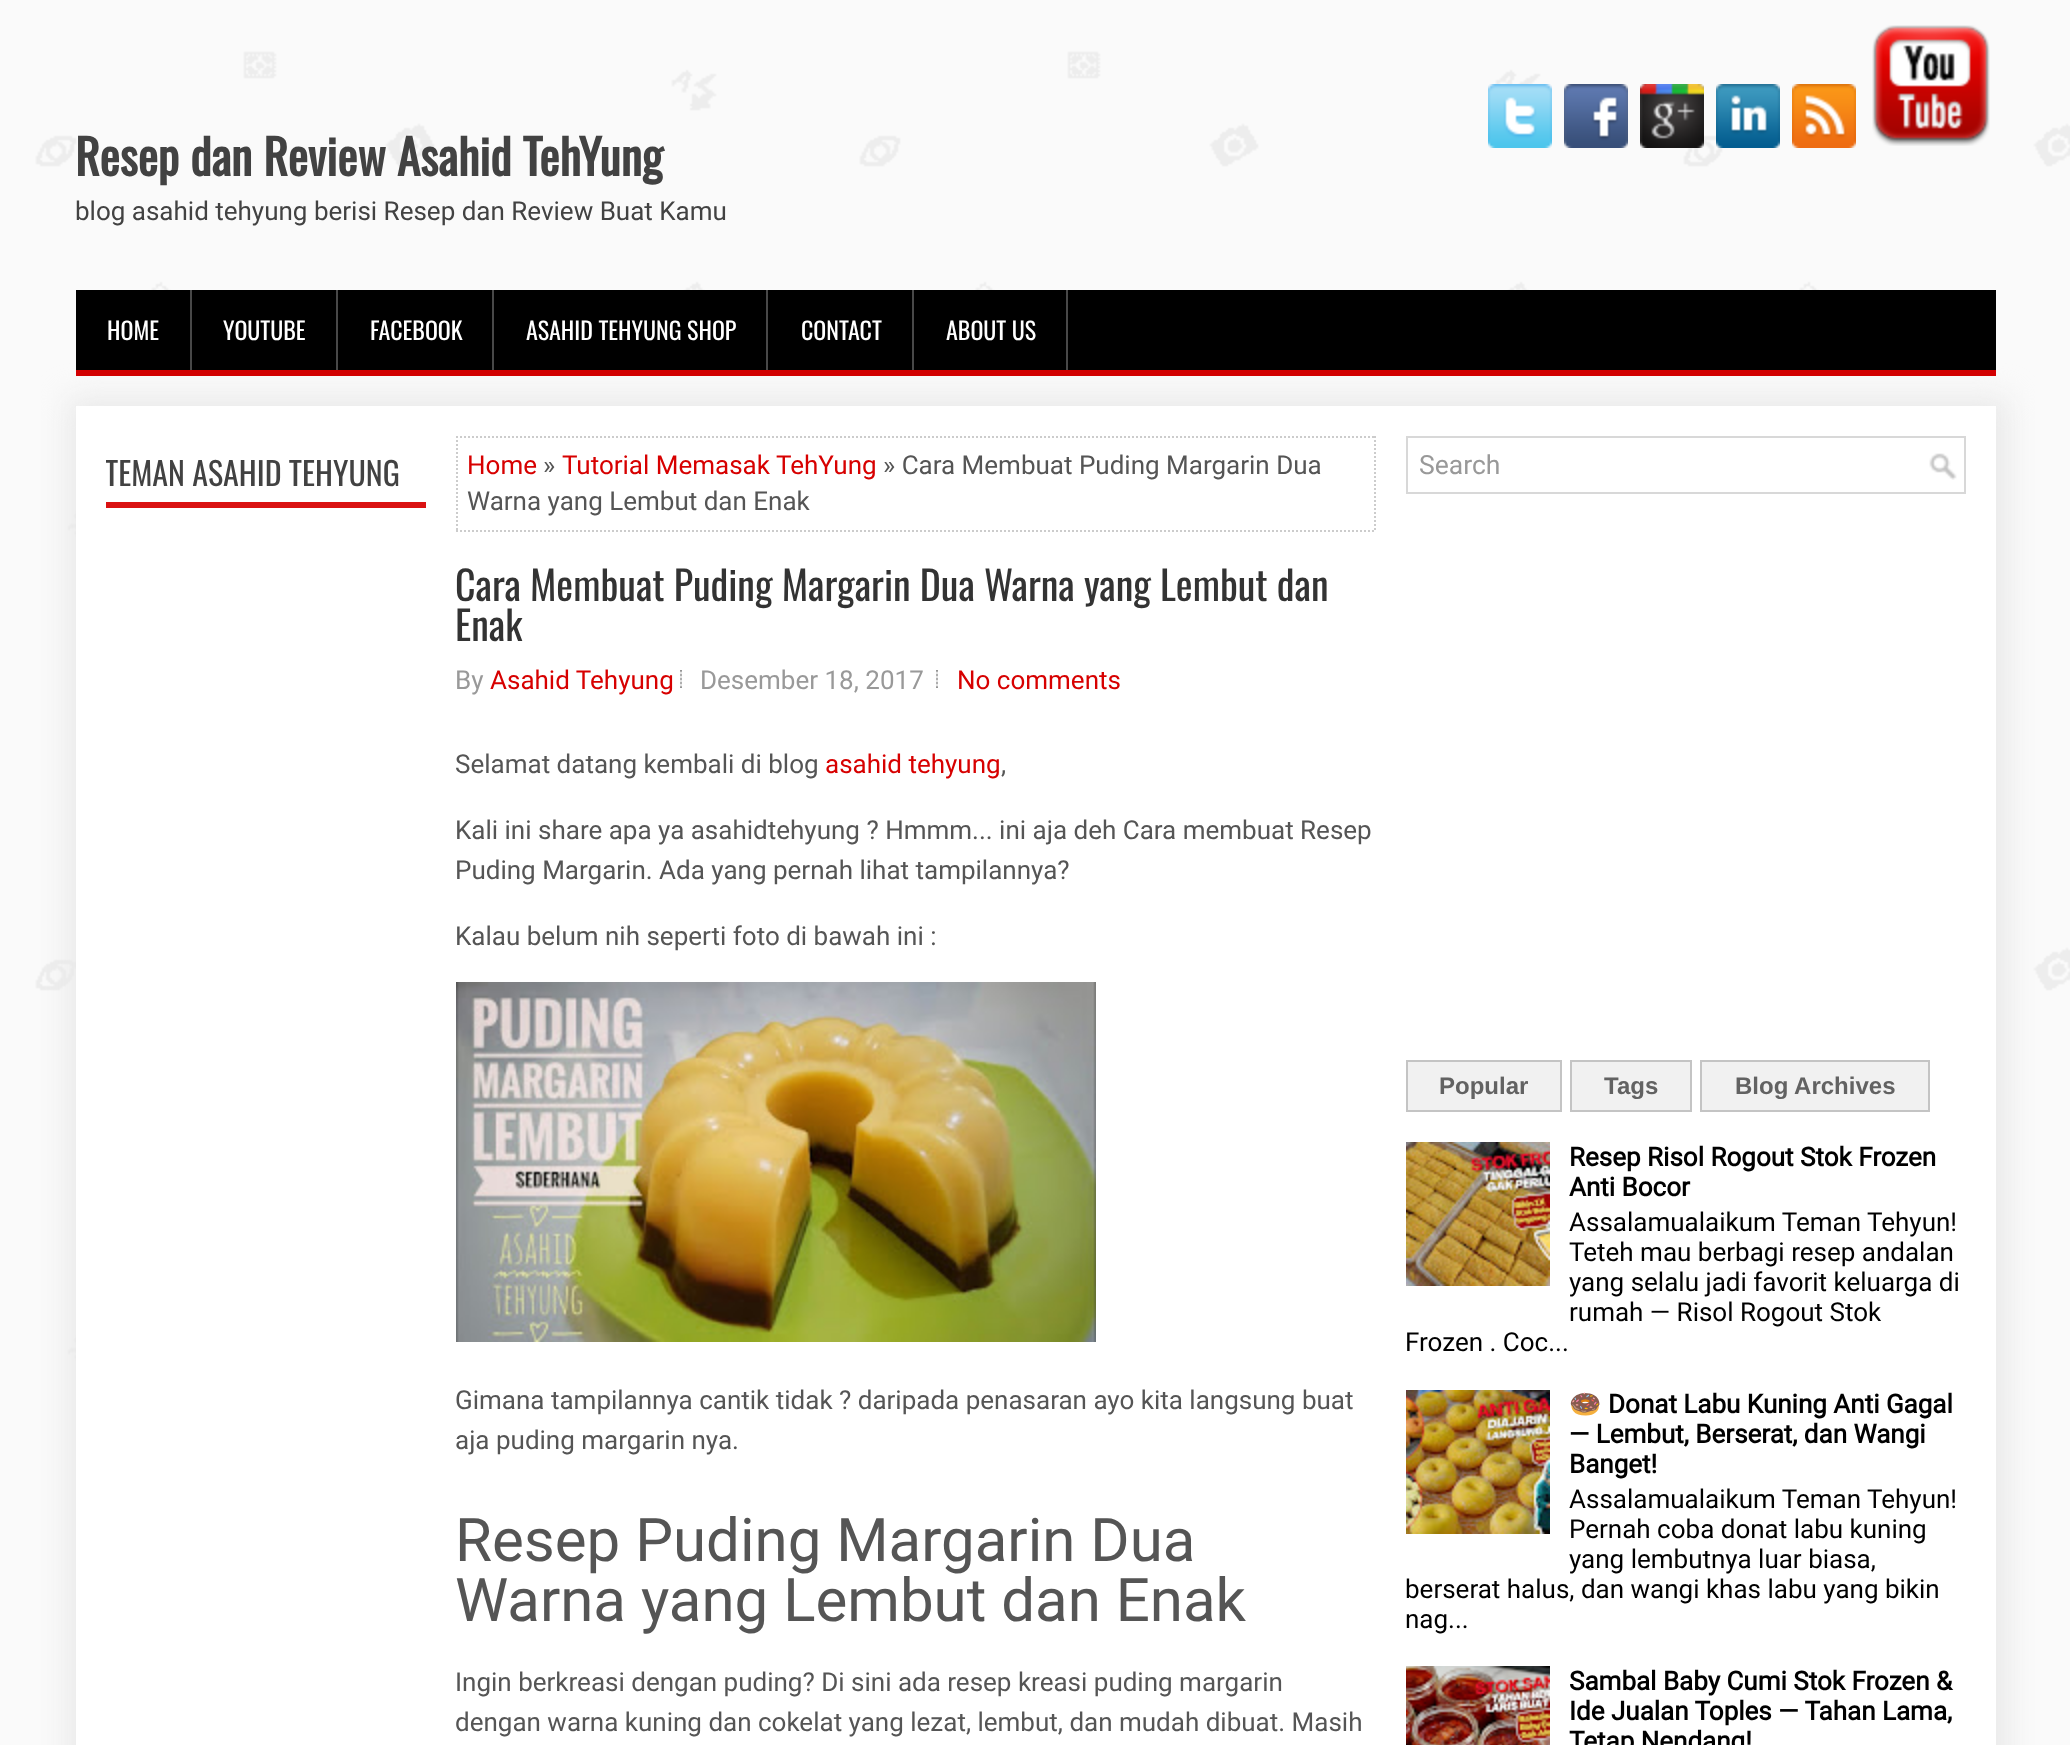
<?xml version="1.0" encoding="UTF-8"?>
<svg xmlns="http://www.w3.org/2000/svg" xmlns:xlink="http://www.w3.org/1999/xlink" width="2070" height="1745">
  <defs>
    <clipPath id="clip1"><rect x="106" y="436" width="320" height="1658" /></clipPath>
  </defs>
  <rect width="100%" height="100%" fill="#ffffff" />
  <image x="0" y="0" width="2070" height="1745" xlink:href="image1.png" />
  <image x="1488" y="84" width="64" height="64" xlink:href="image2.png" />
  <image x="1564" y="84" width="64" height="64" xlink:href="image3.png" />
  <image x="1640" y="84" width="64" height="64" xlink:href="image4.png" />
  <image x="1716" y="84" width="64" height="64" xlink:href="image5.png" />
  <image x="1792" y="84" width="64" height="64" xlink:href="image6.png" />
  <image x="1872" y="25" width="118" height="121" xlink:href="image7.png" />
  <rect x="68" y="398" width="1940" height="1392" fill="#e9e9e9" filter="blur(15px)" />
  <rect x="76" y="290" width="1920" height="80" fill="#000000" />
  <rect x="76" y="370" width="1920" height="6" fill="#d20001" />
  <rect x="190" y="290" width="2" height="80" fill="#484848" />
  <rect x="336" y="290" width="2" height="80" fill="#484848" />
  <rect x="492" y="290" width="2" height="80" fill="#484848" />
  <rect x="766" y="290" width="2" height="80" fill="#484848" />
  <rect x="912" y="290" width="2" height="80" fill="#484848" />
  <rect x="1066" y="290" width="2" height="80" fill="#484848" />
  <rect x="76" y="406" width="1920" height="1339" fill="#ffffff" />
  <rect x="106" y="502" width="320" height="6" fill="#da1212" />
  <path d="M 456 437 h 920" fill="none" stroke="#cccccc" stroke-width="2" stroke-dasharray="2 2" />
  <path d="M 1375 436 v 96" fill="none" stroke="#cccccc" stroke-width="2" stroke-dasharray="2 2" />
  <path d="M 456 531 h 920" fill="none" stroke="#cccccc" stroke-width="2" stroke-dasharray="2 2" />
  <path d="M 457 436 v 96" fill="none" stroke="#cccccc" stroke-width="2" stroke-dasharray="2 2" />
  <image x="680" y="670" width="2" height="18" xlink:href="image8.png" />
  <image x="936" y="670" width="2" height="18" xlink:href="image8.png" />
  <image x="456" y="982" width="640" height="360" xlink:href="image9.png" />
  <image x="1929" y="453" width="28" height="27" xlink:href="image10.png" />
  <rect x="1407" y="437" width="558" height="56" fill="none" stroke="#d8d8d8" stroke-width="2" />
  <rect x="1407" y="1061" width="154" height="50" fill="#f1f1f1" stroke="#c4c4c4" stroke-width="2" />
  <rect x="1571" y="1061" width="120" height="50" fill="#f1f1f1" stroke="#c4c4c4" stroke-width="2" />
  <rect x="1701" y="1061" width="228" height="50" fill="#f1f1f1" stroke="#c4c4c4" stroke-width="2" />
  <image x="1406" y="1142" width="144" height="144" xlink:href="image11.png" />
  <image x="1406" y="1390" width="144" height="144" xlink:href="image12.png" />
  <image x="1406" y="1666" width="144" height="79" xlink:href="image13.png" />
  <text x="75" y="176" style="font-family: Oswald; font-size: 48px; font-weight: bold; fill: #424242">Resep dan Review Asahid TehYung</text>
  <text x="75" y="220" style="font-family: Roboto; font-size: 26px; fill: #424242">blog asahid tehyung berisi Resep dan Review Buat Kamu</text>
  <text x="107" y="340" style="font-family: Oswald; font-size: 24px; fill: #ffffff">HOME</text>
  <text x="223" y="340" style="font-family: Oswald; font-size: 24px; fill: #ffffff">YOUTUBE</text>
  <text x="370" y="340" style="font-family: Oswald; font-size: 24px; fill: #ffffff">FACEBOOK</text>
  <text x="526" y="340" style="font-family: Oswald; font-size: 24px; fill: #ffffff">ASAHID TEHYUNG SHOP</text>
  <text x="801" y="340" style="font-family: Oswald; font-size: 24px; fill: #ffffff">CONTACT</text>
  <text x="946" y="340" style="font-family: Oswald; font-size: 24px; fill: #ffffff">ABOUT US</text>
  <g clip-path="url(#clip1)">
    <text x="105" y="486" style="font-family: Oswald; font-size: 32px; fill: #424242">TEMAN ASAHID TEHYUNG</text>
  </g>
  <text x="467" y="474" style="font-family: Roboto; font-size: 26px; fill: #d70000">Home</text>
  <text x="543" y="474" style="font-family: Roboto; font-size: 26px; fill: #555555">»</text>
  <text x="562" y="474" style="font-family: Roboto; font-size: 26px; fill: #d70000">Tutorial Memasak TehYung</text>
  <text x="883" y="474" style="font-family: Roboto; font-size: 26px; fill: #555555">» Cara Membuat Puding Margarin Dua</text>
  <text x="467" y="510" style="font-family: Roboto; font-size: 26px; fill: #555555">Warna yang Lembut dan Enak</text>
  <text x="455" y="601" style="font-family: Oswald; font-size: 40px; fill: #333333">Cara Membuat Puding Margarin Dua Warna yang Lembut dan</text>
  <text x="455" y="641" style="font-family: Oswald; font-size: 40px; fill: #333333">Enak</text>
  <text x="455" y="689" style="font-family: Roboto; font-size: 26px; fill: #999999">By</text>
  <text x="490" y="689" style="font-family: Roboto; font-size: 26px; fill: #d70000">Asahid Tehyung</text>
  <text x="700" y="689" style="font-family: Roboto; font-size: 26px; fill: #999999">Desember 18, 2017</text>
  <text x="957" y="689" style="font-family: Roboto; font-size: 26px; fill: #d70000">No comments</text>
  <text x="455" y="773" style="font-family: Roboto; font-size: 26px; fill: #555555">Selamat datang kembali di blog</text>
  <text x="825" y="773" style="font-family: Roboto; font-size: 26px; fill: #d70000">asahid tehyung</text>
  <text x="1001" y="773" style="font-family: Roboto; font-size: 26px; fill: #555555">,</text>
  <text x="455" y="839" style="font-family: Roboto; font-size: 26px; fill: #555555">Kali ini share apa ya asahidtehyung ? Hmmm... ini aja deh Cara membuat Resep</text>
  <text x="455" y="879" style="font-family: Roboto; font-size: 26px; fill: #555555">Puding Margarin. Ada yang pernah lihat tampilannya?</text>
  <text x="455" y="945" style="font-family: Roboto; font-size: 26px; fill: #555555">Kalau belum nih seperti foto di bawah ini :</text>
  <text x="455" y="1409" style="font-family: Roboto; font-size: 26px; fill: #555555">Gimana tampilannya cantik tidak ? daripada penasaran ayo kita langsung buat</text>
  <text x="455" y="1449" style="font-family: Roboto; font-size: 26px; fill: #555555">aja puding margarin nya.</text>
  <text x="455" y="1561" style="font-family: Roboto; font-size: 60px; fill: #555555">Resep Puding Margarin Dua</text>
  <text x="455" y="1621" style="font-family: Roboto; font-size: 60px; fill: #555555">Warna yang Lembut dan Enak</text>
  <text x="455" y="1691" style="font-family: Roboto; font-size: 26px; fill: #555555">Ingin berkreasi dengan puding? Di sini ada resep kreasi puding margarin</text>
  <text x="455" y="1731" style="font-family: Roboto; font-size: 26px; fill: #555555">dengan warna kuning dan cokelat yang lezat, lembut, dan mudah dibuat. Masih</text>
  <text x="1419" y="474" style="font-family: Roboto; font-size: 26.5px; fill: #999999">Search</text>
  <text x="1439" y="1094" style="font-family: Liberation Sans; font-size: 24px; font-weight: bold; fill: #626262">Popular</text>
  <text x="1604" y="1094" style="font-family: Liberation Sans; font-size: 24px; font-weight: bold; fill: #626262">Tags</text>
  <text x="1735" y="1094" style="font-family: Liberation Sans; font-size: 24px; font-weight: bold; fill: #626262">Blog Archives</text>
  <text x="1569" y="1166" style="font-family: Roboto; font-size: 26px; font-weight: bold; fill: #000000">Resep Risol Rogout Stok Frozen</text>
  <text x="1569" y="1196" style="font-family: Roboto; font-size: 26px; font-weight: bold; fill: #000000">Anti Bocor</text>
  <text x="1569" y="1231" style="font-family: Roboto; font-size: 26px; fill: #000000">Assalamualaikum Teman Tehyun!</text>
  <text x="1569" y="1261" style="font-family: Roboto; font-size: 26px; fill: #000000">Teteh mau berbagi resep andalan</text>
  <text x="1569" y="1291" style="font-family: Roboto; font-size: 26px; fill: #000000">yang selalu jadi favorit keluarga di</text>
  <text x="1569" y="1321" style="font-family: Roboto; font-size: 26px; fill: #000000">rumah — Risol Rogout Stok</text>
  <text x="1405" y="1351" style="font-family: Roboto; font-size: 26px; fill: #000000">Frozen . Coc...</text>
  <text x="1569" y="1413" style="font-family: Noto Color Emoji; font-size: 26px; font-weight: bold; fill: #000000">🍩</text>
  <text x="1608" y="1413" style="font-family: Roboto; font-size: 26px; font-weight: bold; fill: #000000">Donat Labu Kuning Anti Gagal</text>
  <text x="1569" y="1443" style="font-family: Roboto; font-size: 26px; font-weight: bold; fill: #000000">— Lembut, Berserat, dan Wangi</text>
  <text x="1569" y="1473" style="font-family: Roboto; font-size: 26px; font-weight: bold; fill: #000000">Banget!</text>
  <text x="1569" y="1508" style="font-family: Roboto; font-size: 26px; fill: #000000">Assalamualaikum Teman Tehyun!</text>
  <text x="1569" y="1538" style="font-family: Roboto; font-size: 26px; fill: #000000">Pernah coba donat labu kuning</text>
  <text x="1569" y="1568" style="font-family: Roboto; font-size: 26px; fill: #000000">yang lembutnya luar biasa,</text>
  <text x="1405" y="1598" style="font-family: Roboto; font-size: 26px; fill: #000000">berserat halus, dan wangi khas labu yang bikin</text>
  <text x="1405" y="1628" style="font-family: Roboto; font-size: 26px; fill: #000000">nag...</text>
  <text x="1569" y="1690" style="font-family: Roboto; font-size: 26px; font-weight: bold; fill: #000000">Sambal Baby Cumi Stok Frozen &amp;</text>
  <text x="1569" y="1720" style="font-family: Roboto; font-size: 26px; font-weight: bold; fill: #000000">Ide Jualan Toples — Tahan Lama,</text>
  <text x="1569" y="1750" style="font-family: Roboto; font-size: 26px; font-weight: bold; fill: #000000">Tetap Nendang!</text>
</svg>
